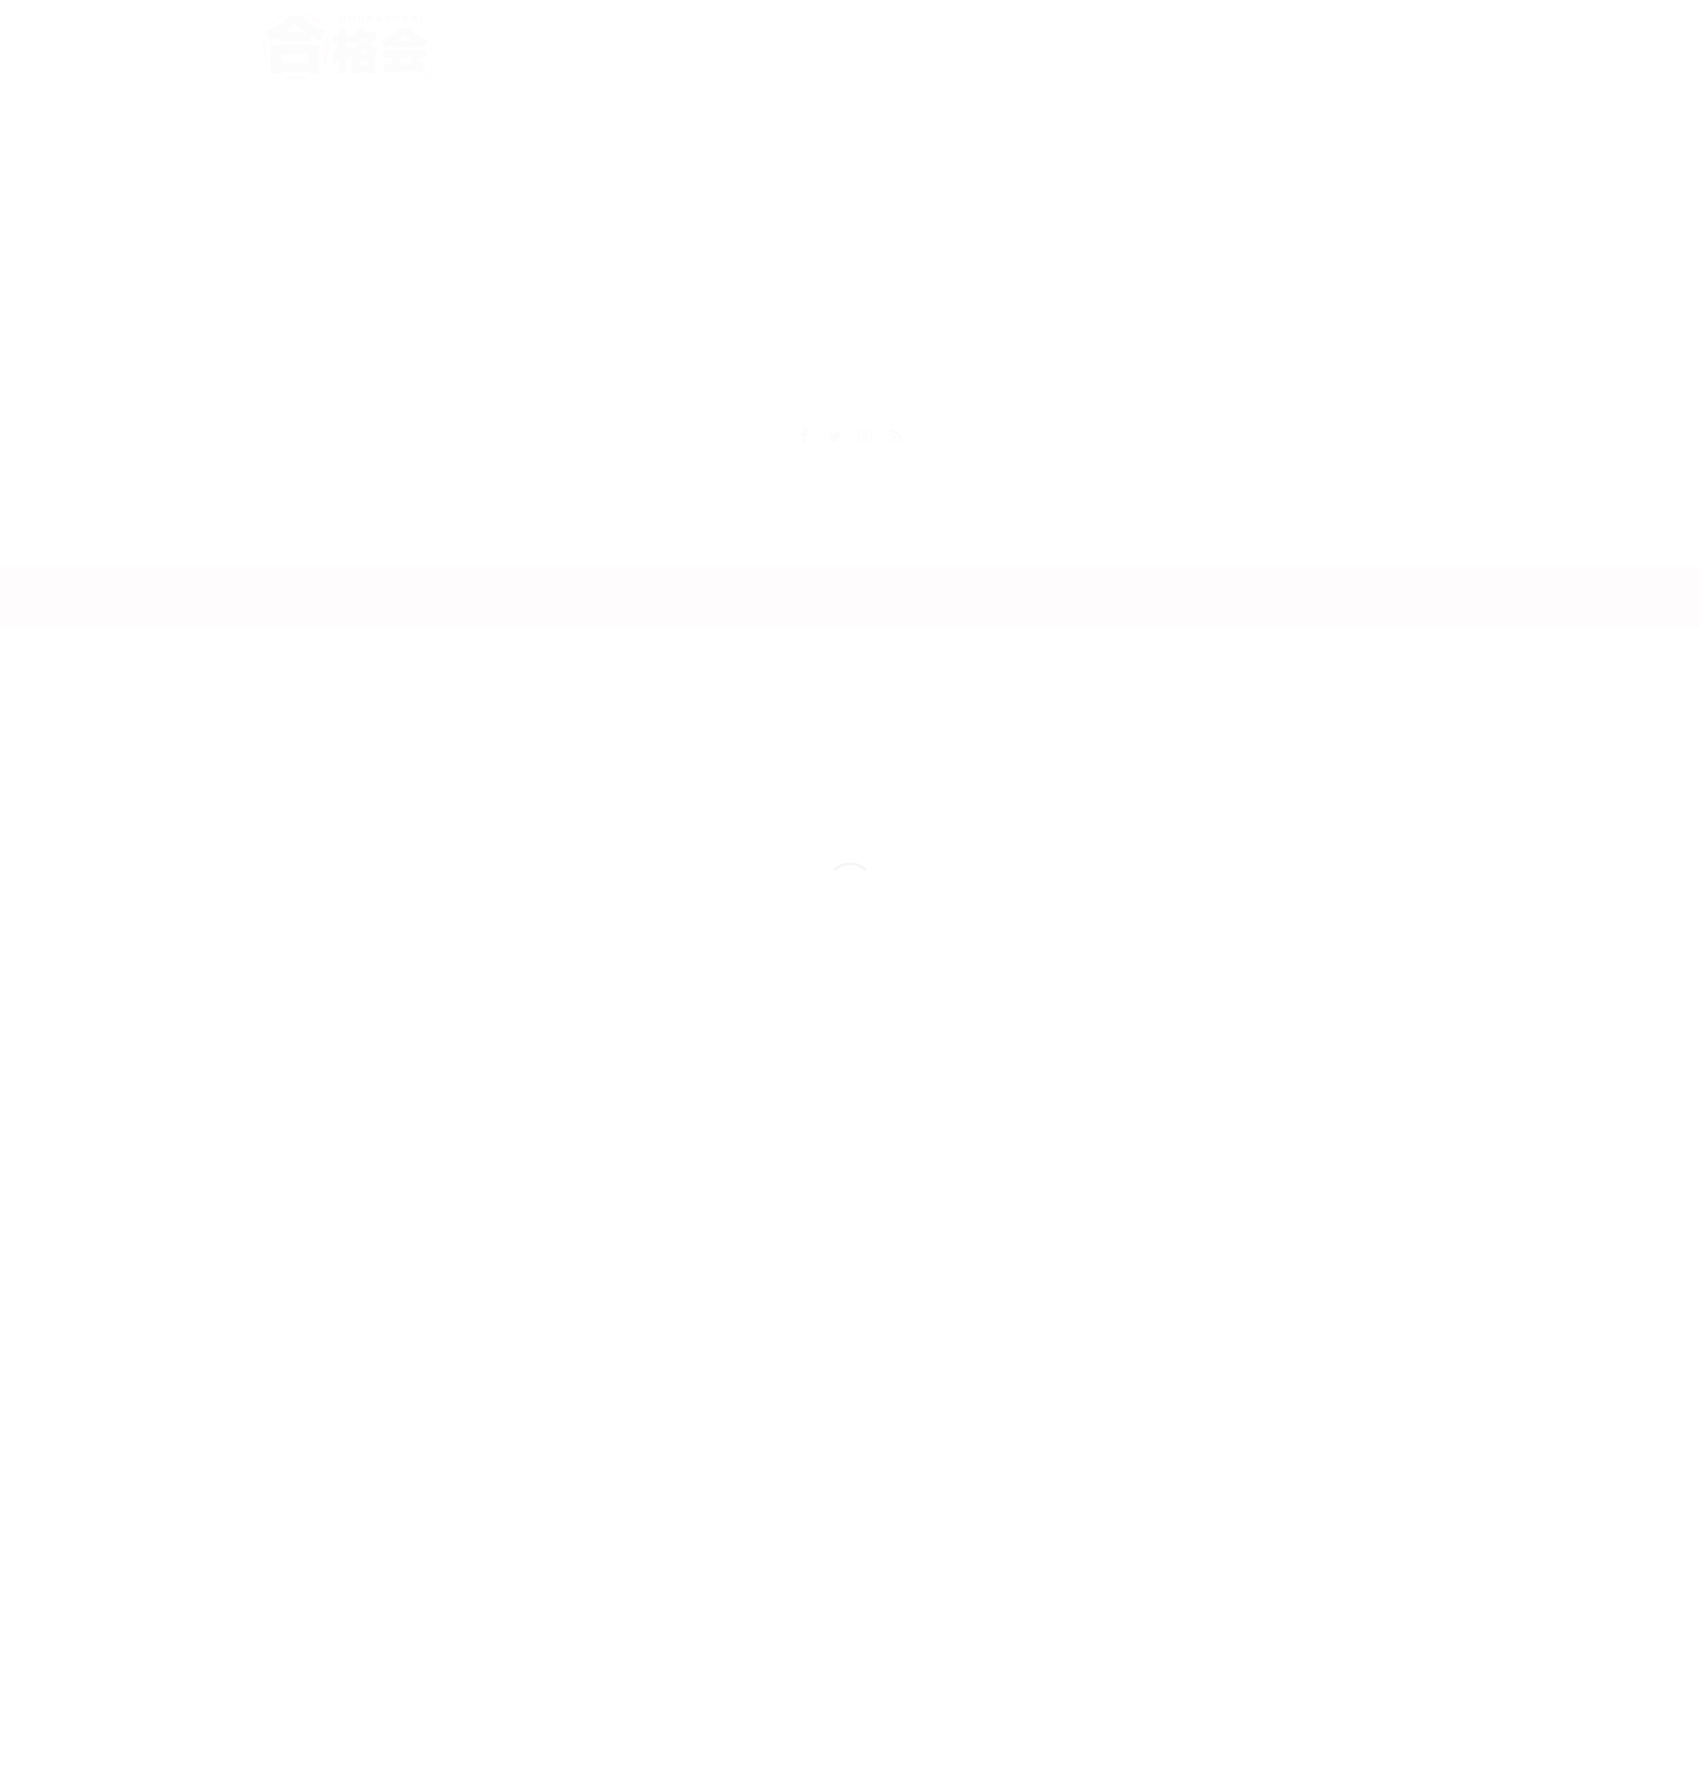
<?xml version="1.0" encoding="UTF-8"?>
<svg xmlns="http://www.w3.org/2000/svg" xmlns:xlink="http://www.w3.org/1999/xlink" width="1700" height="1771">
  <rect width="100%" height="100%" fill="#ffffff" />
  <image x="262" y="12" width="171" height="67" xlink:href="image1.png" />
  <image x="800" y="428" width="8" height="15" xlink:href="image2.png" />
  <image x="828" y="430" width="14" height="12" xlink:href="image3.png" />
  <image x="858" y="428" width="14" height="15" xlink:href="image4.png" />
  <image x="889" y="429" width="14" height="14" xlink:href="image5.png" />
  <rect y="567" width="1700" height="60" fill="#fefcfc" />
  <path d="M 834 870 c 9 -8.5 23 -8.5 32 0" fill="none" stroke="#f6f6f6" stroke-width="3" />
</svg>
